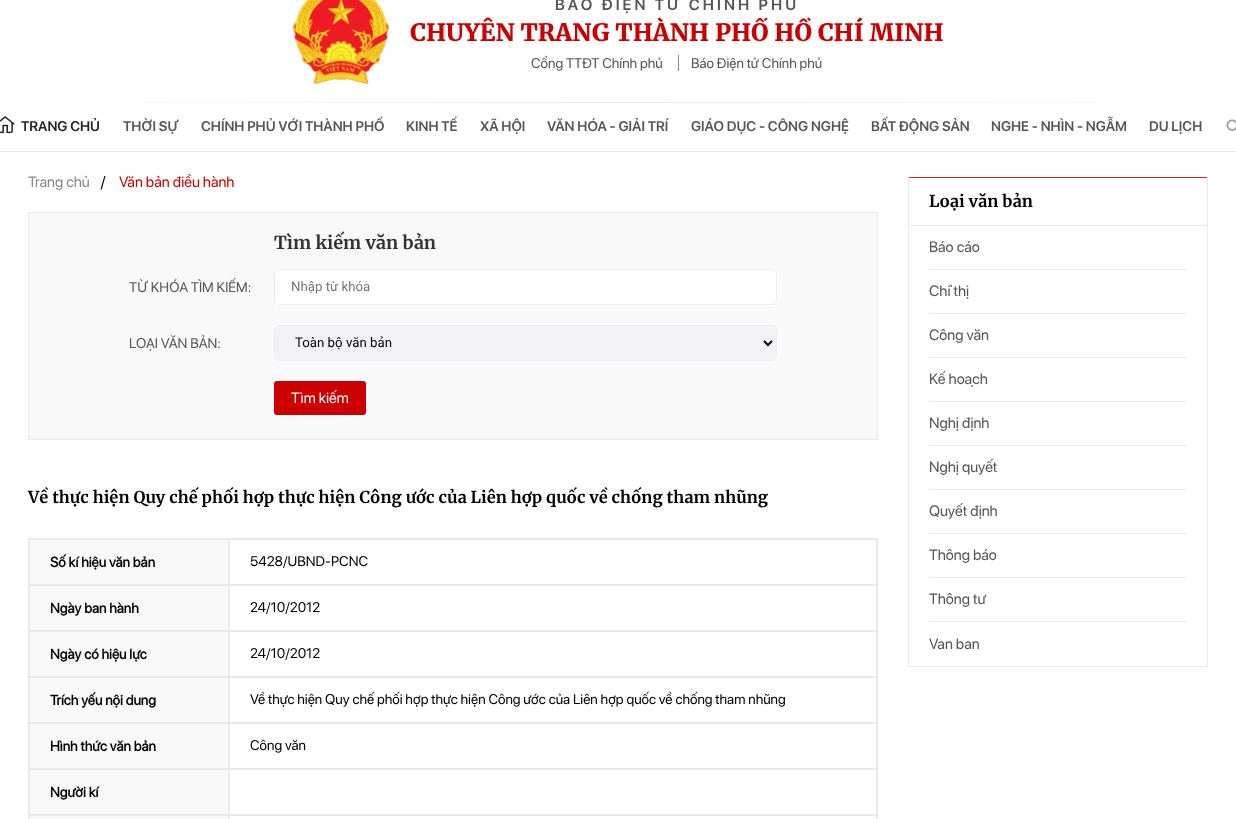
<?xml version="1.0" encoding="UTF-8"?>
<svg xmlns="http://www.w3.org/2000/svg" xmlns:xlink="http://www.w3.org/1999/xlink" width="1236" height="819">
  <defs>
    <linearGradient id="g1" gradientUnits="userSpaceOnUse" x1="28" y1="103" x2="1208" y2="102"><stop offset="0" stop-color="#ffffff" /><stop offset="0.5" stop-color="#e9e9e9" /><stop offset="1" stop-color="#ffffff" /></linearGradient>
  </defs>
  <rect width="100%" height="100%" fill="#ffffff" />
  <rect y="151" width="1236" height="1" fill="#e6e6e6" />
  <image x="293" y="0" width="97" height="84" xlink:href="image1.png" />
  <rect x="678" y="55" width="1" height="16" fill="#888888" />
  <rect x="95" y="102" width="1046" height="1" fill="url(#g1)" />
  <image x="0" y="116" width="15" height="18" xlink:href="image2.png" />
  <image x="1226" y="119" width="10" height="12" xlink:href="image3.png" />
  <rect x="28.5" y="212.5" width="849" height="227" fill="#f9f9f9" stroke="#e9e9e9" />
  <rect x="274.5" y="269.5" width="502" height="35" rx="5.5" fill="#ffffff" stroke="#ecedf0" />
  <rect x="274.5" y="325.5" width="502" height="35" rx="5.5" fill="#f3f3f5" stroke="#ecedf0" />
  <path d="M 764 341 l 4 4 l 4 -4" fill="none" stroke="#000000" stroke-width="2" />
  <rect x="274" y="381" width="92" height="34" rx="3" fill="#cc0000" />
  <rect x="28" y="538" width="850" height="1" fill="#e9e9e9" />
  <rect x="877" y="538" width="1" height="281" fill="#e9e9e9" />
  <rect x="28" y="538" width="1" height="281" fill="#e9e9e9" />
  <rect x="29.5" y="539.5" width="199" height="45" fill="#f9f9f9" stroke="#e9e9e9" />
  <rect x="229.5" y="539.5" width="647" height="45" fill="none" stroke="#e9e9e9" />
  <rect x="29.5" y="585.5" width="199" height="45" fill="#f9f9f9" stroke="#e9e9e9" />
  <rect x="229.5" y="585.5" width="647" height="45" fill="none" stroke="#e9e9e9" />
  <rect x="29.5" y="631.5" width="199" height="45" fill="#f9f9f9" stroke="#e9e9e9" />
  <rect x="229.5" y="631.5" width="647" height="45" fill="none" stroke="#e9e9e9" />
  <rect x="29.5" y="677.5" width="199" height="45" fill="#f9f9f9" stroke="#e9e9e9" />
  <rect x="229.5" y="677.5" width="647" height="45" fill="none" stroke="#e9e9e9" />
  <rect x="29.5" y="723.5" width="199" height="45" fill="#f9f9f9" stroke="#e9e9e9" />
  <rect x="229.5" y="723.5" width="647" height="45" fill="none" stroke="#e9e9e9" />
  <rect x="29.5" y="769.5" width="199" height="45" fill="#f9f9f9" stroke="#e9e9e9" />
  <rect x="229.5" y="769.5" width="647" height="45" fill="none" stroke="#e9e9e9" />
  <rect x="29.5" y="815.5" width="199" height="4" fill="#f9f9f9" stroke="#e9e9e9" />
  <rect x="229.5" y="815.5" width="647" height="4" fill="none" stroke="#e9e9e9" />
  <rect x="908" y="177" width="300" height="1" fill="#da251c" />
  <rect x="1207" y="177" width="1" height="490" fill="#e9e9e9" />
  <rect x="908" y="666" width="300" height="1" fill="#e9e9e9" />
  <rect x="908" y="177" width="1" height="490" fill="#e9e9e9" />
  <rect x="909" y="225" width="298" height="1" fill="#e9e9e9" />
  <rect x="929" y="269" width="258" height="1" fill="#e9e9e9" />
  <rect x="929" y="313" width="258" height="1" fill="#e9e9e9" />
  <rect x="929" y="357" width="258" height="1" fill="#e9e9e9" />
  <rect x="929" y="401" width="258" height="1" fill="#e9e9e9" />
  <rect x="929" y="445" width="258" height="1" fill="#e9e9e9" />
  <rect x="929" y="489" width="258" height="1" fill="#e9e9e9" />
  <rect x="929" y="533" width="258" height="1" fill="#e9e9e9" />
  <rect x="929" y="577" width="258" height="1" fill="#e9e9e9" />
  <rect x="929" y="621" width="258" height="1" fill="#e9e9e9" />
  <text x="555" y="10" style="font-family: SF Pro Display; font-size: 15.5px; font-weight: 600; letter-spacing: 3.1px; fill: #555555">BÁO ĐIỆN TỬ CHÍNH PHỦ</text>
  <text x="410" y="41" style="font-family: Merriweather; font-size: 24px; font-weight: 900; fill: #cc0000">CHUYÊN TRANG THÀNH PHỐ HỒ CHÍ MINH</text>
  <text x="531" y="68" style="font-family: SF Pro Display; font-size: 14px; fill: #555555">Cổng TTĐT Chính phủ</text>
  <text x="691" y="68" style="font-family: SF Pro Display; font-size: 14px; fill: #555555">Báo Điện tử Chính phủ</text>
  <text x="21" y="131" style="font-family: SF Pro Display; font-size: 14px; font-weight: 600; fill: #222222">TRANG CHỦ</text>
  <text x="123" y="131" style="font-family: SF Pro Display; font-size: 14px; font-weight: 600; fill: #555555">THỜI SỰ</text>
  <text x="201" y="131" style="font-family: SF Pro Display; font-size: 14px; font-weight: 600; fill: #555555">CHÍNH PHỦ VỚI THÀNH PHỐ</text>
  <text x="406" y="131" style="font-family: SF Pro Display; font-size: 14px; font-weight: 600; fill: #555555">KINH TẾ</text>
  <text x="480" y="131" style="font-family: SF Pro Display; font-size: 14px; font-weight: 600; fill: #555555">XÃ HỘI</text>
  <text x="547" y="131" style="font-family: SF Pro Display; font-size: 14px; font-weight: 600; fill: #555555">VĂN HÓA - GIẢI TRÍ</text>
  <text x="691" y="131" style="font-family: SF Pro Display; font-size: 14px; font-weight: 600; fill: #555555">GIÁO DỤC - CÔNG NGHỆ</text>
  <text x="871" y="131" style="font-family: SF Pro Display; font-size: 14px; font-weight: 600; fill: #555555">BẤT ĐỘNG SẢN</text>
  <text x="991" y="131" style="font-family: SF Pro Display; font-size: 14px; font-weight: 600; fill: #555555">NGHE - NHÌN - NGẪM</text>
  <text x="1149" y="131" style="font-family: SF Pro Display; font-size: 14px; font-weight: 600; fill: #555555">DU LỊCH</text>
  <text x="28" y="187" style="font-family: SF Pro Display; font-size: 15px; fill: #888888">Trang chủ</text>
  <text x="100" y="187" style="font-family: Merriweather; font-size: 14px; fill: #000000">/</text>
  <text x="119" y="187" style="font-family: SF Pro Display; font-size: 15px; fill: #cc0000">Văn bản điều hành</text>
  <text x="274" y="249" style="font-family: Merriweather; font-size: 18px; font-weight: bold; fill: #333333">Tìm kiếm văn bản</text>
  <text x="129" y="292" style="font-family: SF Pro Display; font-size: 14px; fill: #555555">TỪ KHÓA TÌM KIẾM:</text>
  <text x="291" y="291" style="font-family: Roboto; font-size: 13.25px; fill: #757575">Nhập từ khóa</text>
  <text x="129" y="348" style="font-family: SF Pro Display; font-size: 14px; fill: #555555">LOẠI VĂN BẢN:</text>
  <text x="295" y="347" style="font-family: Roboto; font-size: 13.25px; fill: #000000">Toàn bộ văn bản</text>
  <text x="291" y="403" style="font-family: SF Pro Display; font-size: 15px; fill: #ffffff">Tìm kiếm</text>
  <text x="28" y="503" style="font-family: Merriweather; font-size: 16.4px; font-weight: bold; fill: #000000">Về thực hiện Quy chế phối hợp thực hiện Công ước của Liên hợp quốc về chống tham nhũng</text>
  <text x="50" y="567" style="font-family: SF Pro Display; font-size: 14px; font-weight: bold; fill: #000000">Số kí hiệu văn bản</text>
  <text x="250" y="566" style="font-family: SF Pro Display; font-size: 14px; fill: #000000">5428/UBND-PCNC</text>
  <text x="50" y="613" style="font-family: SF Pro Display; font-size: 14px; font-weight: bold; fill: #000000">Ngày ban hành</text>
  <text x="250" y="612" style="font-family: SF Pro Display; font-size: 14px; fill: #000000">24/10/2012</text>
  <text x="50" y="659" style="font-family: SF Pro Display; font-size: 14px; font-weight: bold; fill: #000000">Ngày có hiệu lực</text>
  <text x="250" y="658" style="font-family: SF Pro Display; font-size: 14px; fill: #000000">24/10/2012</text>
  <text x="50" y="705" style="font-family: SF Pro Display; font-size: 14px; font-weight: bold; fill: #000000">Trích yếu nội dung</text>
  <text x="250" y="704" style="font-family: SF Pro Display; font-size: 14px; fill: #000000">Về thực hiện Quy chế phối hợp thực hiện Công ước của Liên hợp quốc về chống tham nhũng</text>
  <text x="50" y="751" style="font-family: SF Pro Display; font-size: 14px; font-weight: bold; fill: #000000">Hình thức văn bản</text>
  <text x="250" y="750" style="font-family: SF Pro Display; font-size: 14px; fill: #000000">Công văn</text>
  <text x="50" y="797" style="font-family: SF Pro Display; font-size: 14px; font-weight: bold; fill: #000000">Người kí</text>
  <text x="929" y="207" style="font-family: Merriweather; font-size: 16.4px; font-weight: bold; fill: #000000">Loại văn bản</text>
  <text x="929" y="252" style="font-family: SF Pro Display; font-size: 15px; fill: #555555">Báo cáo</text>
  <text x="929" y="296" style="font-family: SF Pro Display; font-size: 15px; fill: #555555">Chỉ thị</text>
  <text x="929" y="340" style="font-family: SF Pro Display; font-size: 15px; fill: #555555">Công văn</text>
  <text x="929" y="384" style="font-family: SF Pro Display; font-size: 15px; fill: #555555">Kế hoạch</text>
  <text x="929" y="428" style="font-family: SF Pro Display; font-size: 15px; fill: #555555">Nghị định</text>
  <text x="929" y="472" style="font-family: SF Pro Display; font-size: 15px; fill: #555555">Nghị quyết</text>
  <text x="929" y="516" style="font-family: SF Pro Display; font-size: 15px; fill: #555555">Quyết định</text>
  <text x="929" y="560" style="font-family: SF Pro Display; font-size: 15px; fill: #555555">Thông báo</text>
  <text x="929" y="604" style="font-family: SF Pro Display; font-size: 15px; fill: #555555">Thông tư</text>
  <text x="929" y="649" style="font-family: SF Pro Display; font-size: 15px; fill: #555555">Van ban</text>
</svg>
